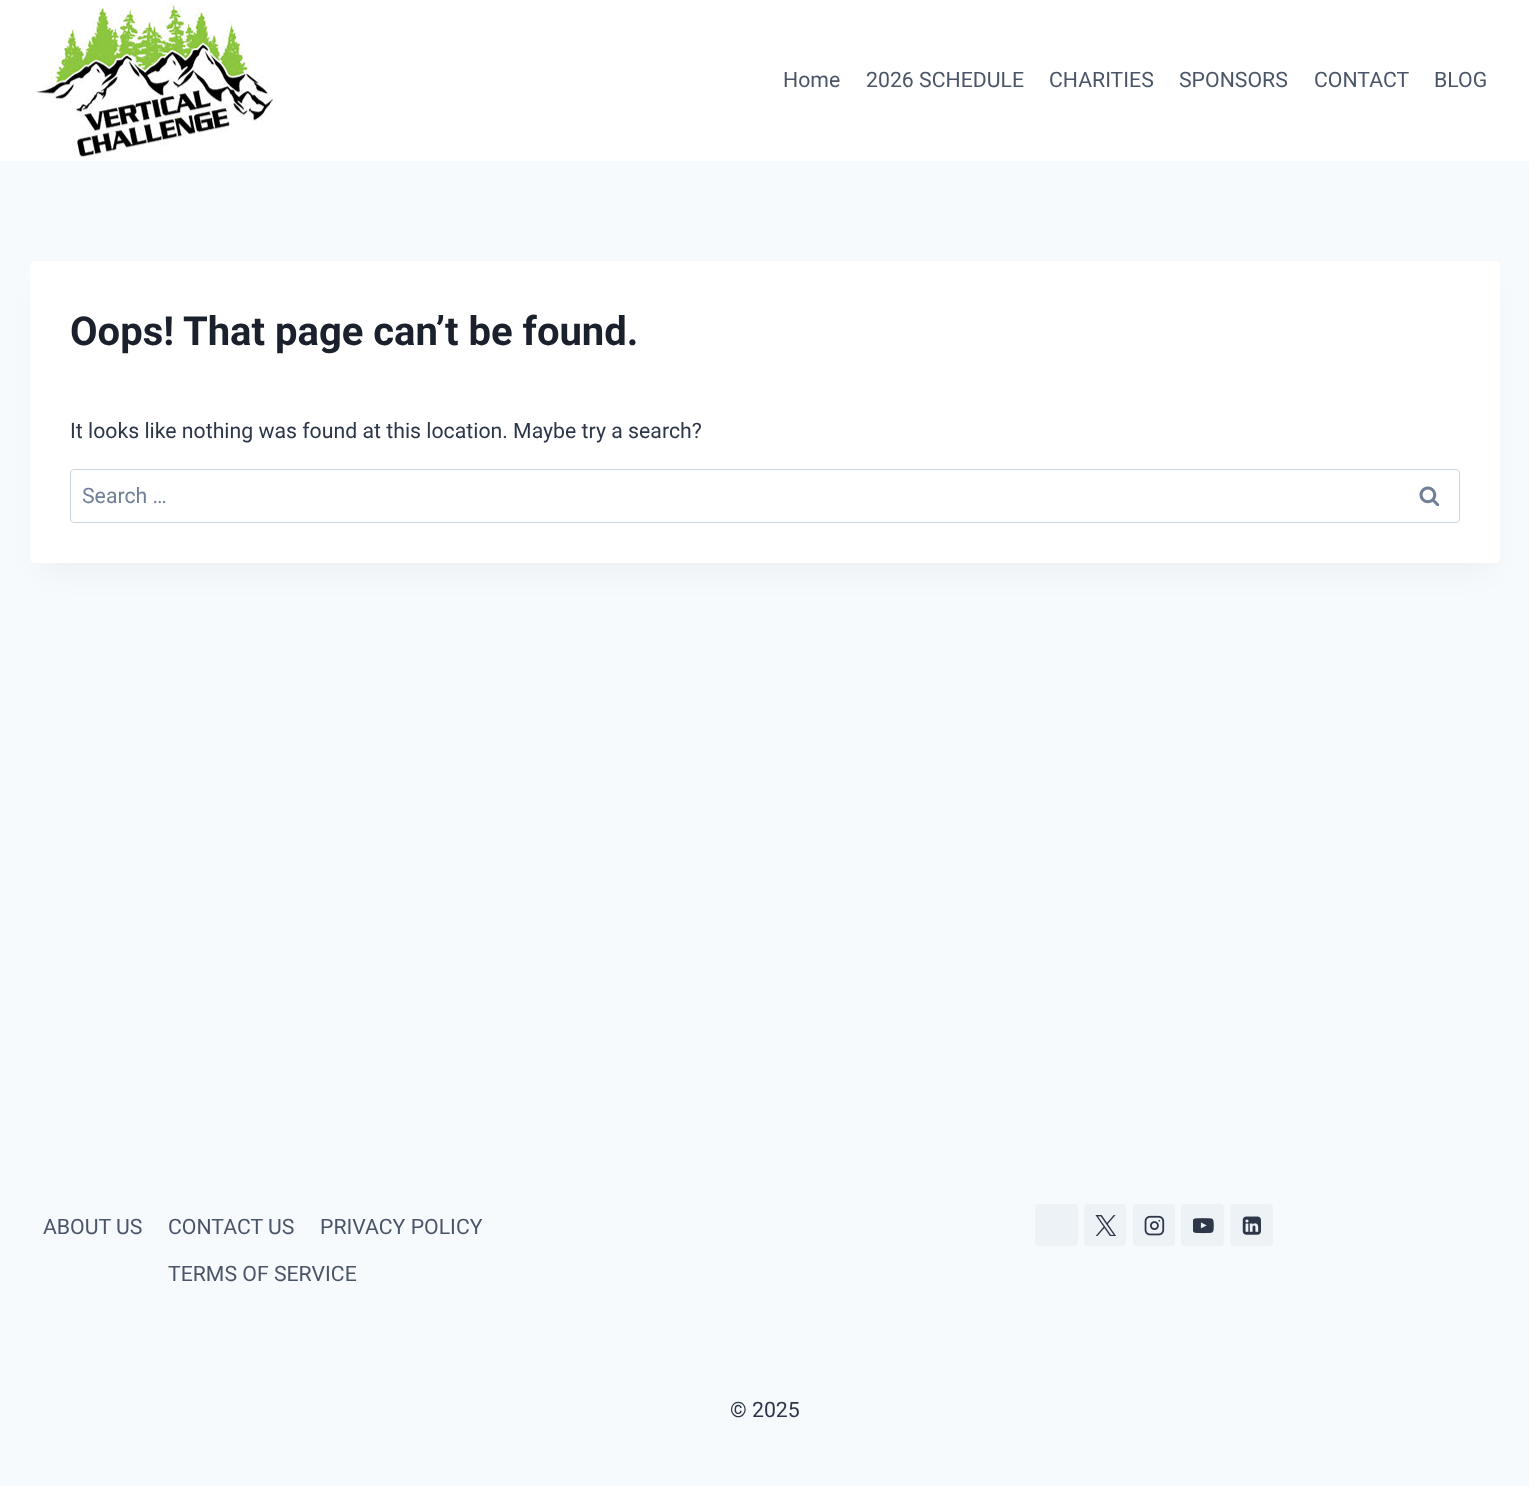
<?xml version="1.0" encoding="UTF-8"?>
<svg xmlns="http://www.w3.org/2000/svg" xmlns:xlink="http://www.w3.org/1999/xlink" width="1529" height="1486">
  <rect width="100%" height="100%" fill="#f7fafc" />
  <rect width="1529" height="161" fill="#ffffff" />
  <image x="36" y="0" width="241" height="158" xlink:href="image1.png" />
  <rect x="43" y="293" width="1445" height="276" fill="#000000" fill-opacity="0.05" filter="blur(15.5px)" />
  <rect x="30" y="261" width="1470" height="302" rx="5" fill="#ffffff" />
  <rect x="70.5" y="469.5" width="1389" height="53" rx="3.5" fill="none" stroke="#cbd5e0" />
  <image x="1419" y="486" width="21" height="20" xlink:href="image2.png" />
  <rect x="1035" y="1204" width="43" height="42" rx="4" fill="#edf2f7" />
  <rect x="1084" y="1204" width="42" height="42" rx="4" fill="#edf2f7" />
  <image x="1095" y="1215" width="21" height="21" xlink:href="image3.png" />
  <rect x="1133" y="1204" width="42" height="42" rx="4" fill="#edf2f7" />
  <image x="1144" y="1215" width="21" height="21" xlink:href="image4.png" />
  <rect x="1181" y="1204" width="43" height="42" rx="4" fill="#edf2f7" />
  <image x="1193" y="1218" width="21" height="16" xlink:href="image5.png" />
  <rect x="1230" y="1204" width="43" height="42" rx="4" fill="#edf2f7" />
  <image x="1242" y="1216" width="19" height="19" xlink:href="image6.png" />
  <text x="783" y="87" style="font-family: Roboto; font-size: 21.25px; fill: #4a5568">Home</text>
  <text x="866" y="87" style="font-family: Roboto; font-size: 21.25px; fill: #4a5568">2026 SCHEDULE</text>
  <text x="1049" y="87" style="font-family: Roboto; font-size: 21.25px; fill: #4a5568">CHARITIES</text>
  <text x="1179" y="87" style="font-family: Roboto; font-size: 21.25px; fill: #4a5568">SPONSORS</text>
  <text x="1314" y="87" style="font-family: Roboto; font-size: 21.25px; fill: #4a5568">CONTACT</text>
  <text x="1434" y="87" style="font-family: Roboto; font-size: 21.25px; fill: #4a5568">BLOG</text>
  <text x="70" y="345" style="font-family: Roboto; font-size: 40px; font-weight: bold; fill: #1a202c">Oops! That page can’t be found.</text>
  <text x="70" y="438" style="font-family: Roboto; font-size: 21.25px; fill: #2d3748">It looks like nothing was found at this location. Maybe try a search?</text>
  <text x="82" y="503" style="font-family: Roboto; font-size: 21.25px; fill: #718096">Search …</text>
  <text x="43" y="1234" style="font-family: Roboto; font-size: 21.25px; fill: #4a5568">ABOUT US</text>
  <text x="168" y="1234" style="font-family: Roboto; font-size: 21.25px; fill: #4a5568">CONTACT US</text>
  <text x="320" y="1234" style="font-family: Roboto; font-size: 21.25px; fill: #4a5568">PRIVACY POLICY</text>
  <text x="168" y="1281" style="font-family: Roboto; font-size: 21.25px; fill: #4a5568">TERMS OF SERVICE</text>
  <text x="730" y="1417" style="font-family: Roboto; font-size: 21.25px; fill: #2d3748">© 2025</text>
</svg>
